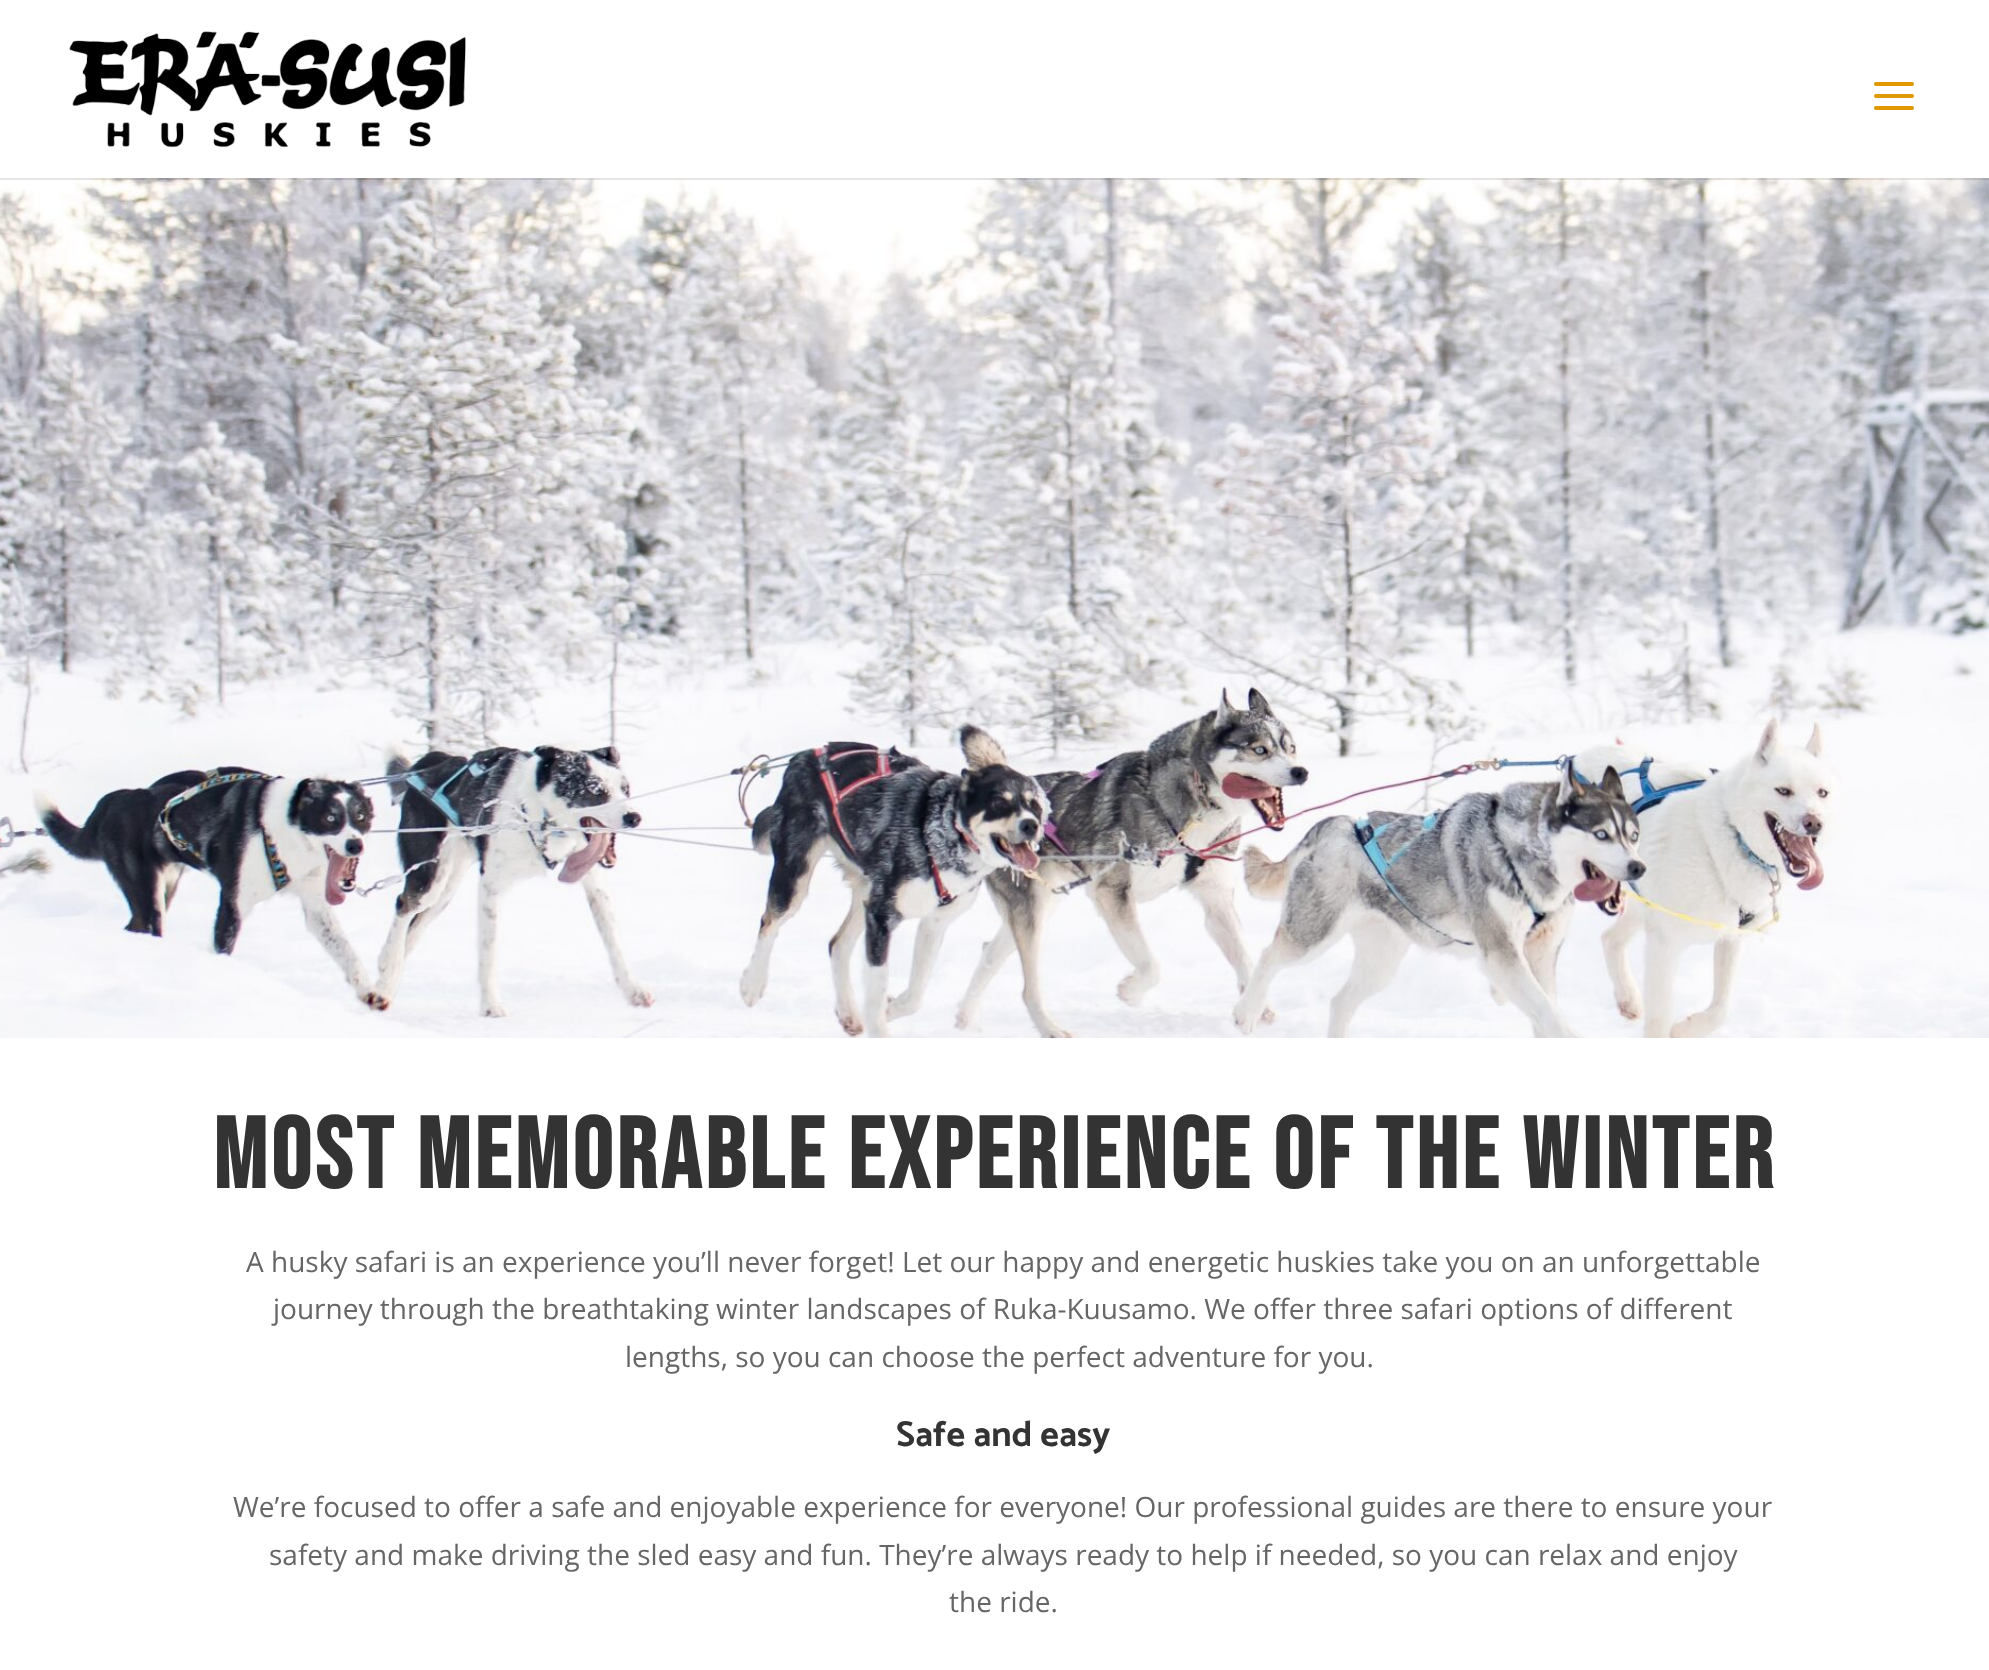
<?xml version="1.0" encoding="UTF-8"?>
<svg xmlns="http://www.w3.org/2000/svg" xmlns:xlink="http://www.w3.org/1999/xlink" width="1989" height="1670">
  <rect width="100%" height="100%" fill="#ffffff" />
  <image x="0" y="178" width="1989" height="860" xlink:href="image3.png" />
  <rect y="178" width="1989" height="2" fill="#000000" fill-opacity="0.1" />
  <image x="69" y="31" width="397" height="117" xlink:href="image1.png" />
  <image x="1874" y="82" width="40" height="28" xlink:href="image2.png" />
  <text x="213" y="1188" style="font-family: Bebas Neue; font-size: 100px; font-weight: bold; letter-spacing: 4px; fill: #333333">most memorable experience of the winter</text>
  <text x="246" y="1272" style="font-family: Open Sans; font-size: 28px; fill: #666666">A husky safari is an experience you’ll never forget! Let our happy and energetic huskies take you on an unforgettable</text>
  <text x="273" y="1319" style="font-family: Open Sans; font-size: 28px; fill: #666666">journey through the breathtaking winter landscapes of Ruka-Kuusamo. We offer three safari options of different</text>
  <text x="625" y="1367" style="font-family: Open Sans; font-size: 28px; fill: #666666">lengths, so you can choose the perfect adventure for you.</text>
  <text x="896" y="1446" style="font-family: Catamaran; font-size: 36px; font-weight: bold; fill: #333333">Safe and easy</text>
  <text x="233" y="1517" style="font-family: Open Sans; font-size: 28px; fill: #666666">We’re focused to offer a safe and enjoyable experience for everyone! Our professional guides are there to ensure your</text>
  <text x="269" y="1565" style="font-family: Open Sans; font-size: 28px; fill: #666666">safety and make driving the sled easy and fun. They’re always ready to help if needed, so you can relax and enjoy</text>
  <text x="949" y="1612" style="font-family: Open Sans; font-size: 28px; fill: #666666">the ride.</text>
</svg>
